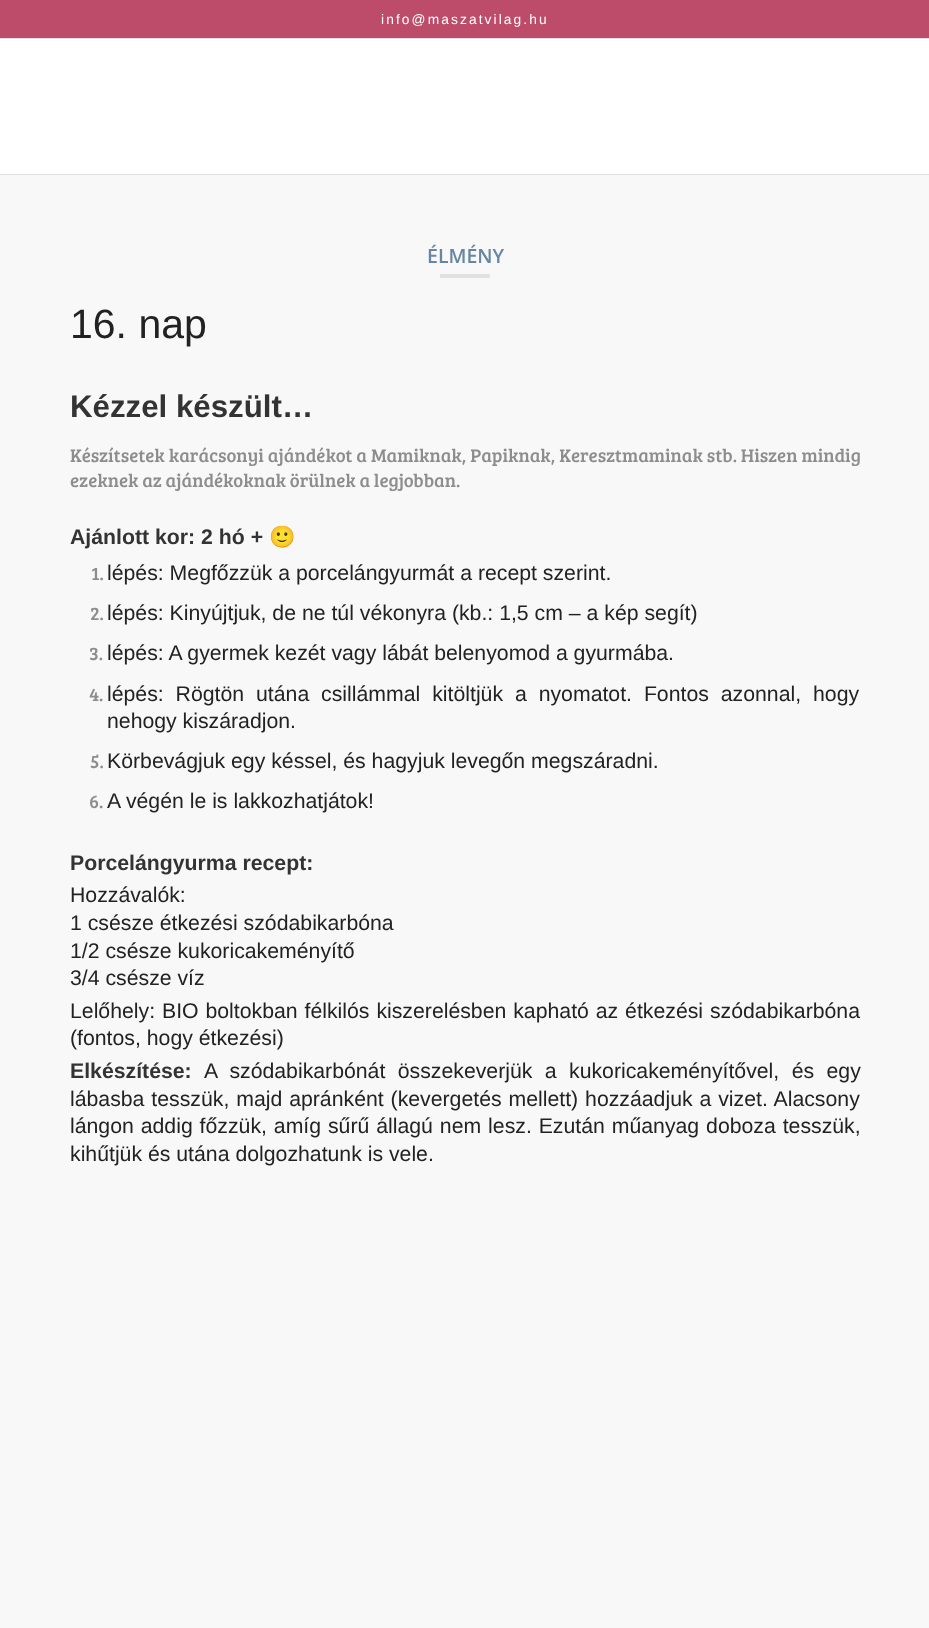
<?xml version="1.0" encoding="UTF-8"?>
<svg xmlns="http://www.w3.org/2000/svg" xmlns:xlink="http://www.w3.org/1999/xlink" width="929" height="1628">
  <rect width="100%" height="100%" fill="#f8f8f8" />
  <rect width="929" height="38" fill="#bd4c6a" />
  <rect y="38" width="929" height="1" fill="#e1e1e1" />
  <rect y="39" width="929" height="135" fill="#ffffff" />
  <rect y="174" width="929" height="1" fill="#e1e1e1" />
  <rect x="440" y="274" width="50" height="4" fill="#e1e1e1" />
  <text x="381" y="24" style="font-family: Liberation Sans; font-size: 13.75px; letter-spacing: 2.1px; fill: #ffffff">info@maszatvilag.hu</text>
  <text x="427" y="263" style="font-family: Open Sans; font-size: 19.5px; font-weight: 600; fill: #6786a1">ÉLMÉNY</text>
  <text x="70" y="338" style="font-family: Liberation Sans; font-size: 41px; fill: #222222">16. nap</text>
  <text x="70" y="417" style="font-family: Liberation Sans; font-size: 31.25px; font-weight: bold; fill: #333333">Kézzel készült…</text>
  <text x="70" y="462" word-spacing="0.25" style="font-family: Bree Serif; font-size: 18.75px; fill: #8d8d8d">Készítsetek karácsonyi ajándékot a Mamiknak, Papiknak, Keresztmaminak stb. Hiszen mindig</text>
  <text x="70" y="487" style="font-family: Bree Serif; font-size: 18.75px; fill: #8d8d8d">ezeknek az ajándékoknak örülnek a legjobban.</text>
  <text x="70" y="544" style="font-family: Liberation Sans; font-size: 21.25px; font-weight: bold; fill: #333333">Ajánlott kor: 2 hó +</text>
  <text x="269" y="544" style="font-family: Noto Color Emoji; font-size: 21.25px; font-weight: bold; fill: #333333">🙂</text>
  <text x="91" y="580" style="font-family: Bree Serif; font-size: 18.75px; fill: #8d8d8d">1.</text>
  <text x="107" y="580" style="font-family: Liberation Sans; font-size: 21.25px; fill: #222222">lépés: Megfőzzük a porcelángyurmát a recept szerint.</text>
  <text x="90" y="620" style="font-family: Bree Serif; font-size: 18.75px; fill: #8d8d8d">2.</text>
  <text x="107" y="620" style="font-family: Liberation Sans; font-size: 21.25px; fill: #222222">lépés: Kinyújtjuk, de ne túl vékonyra (kb.: 1,5 cm – a kép segít)</text>
  <text x="89" y="660" style="font-family: Bree Serif; font-size: 18.75px; fill: #8d8d8d">3.</text>
  <text x="107" y="660" style="font-family: Liberation Sans; font-size: 21.25px; fill: #222222">lépés: A gyermek kezét vagy lábát belenyomod a gyurmába.</text>
  <text x="89" y="701" style="font-family: Bree Serif; font-size: 18.75px; fill: #8d8d8d">4.</text>
  <text x="107" y="701" word-spacing="6" style="font-family: Liberation Sans; font-size: 21.25px; fill: #222222">lépés: Rögtön utána csillámmal kitöltjük a nyomatot. Fontos azonnal, hogy</text>
  <text x="107" y="728" style="font-family: Liberation Sans; font-size: 21.25px; fill: #222222">nehogy kiszáradjon.</text>
  <text x="90" y="768" style="font-family: Bree Serif; font-size: 18.75px; fill: #8d8d8d">5.</text>
  <text x="107" y="768" style="font-family: Liberation Sans; font-size: 21.25px; fill: #222222">Körbevágjuk egy késsel, és hagyjuk levegőn megszáradni.</text>
  <text x="89" y="808" style="font-family: Bree Serif; font-size: 18.75px; fill: #8d8d8d">6.</text>
  <text x="107" y="808" style="font-family: Liberation Sans; font-size: 21.25px; fill: #222222">A végén le is lakkozhatjátok!</text>
  <text x="70" y="870" style="font-family: Liberation Sans; font-size: 21.25px; font-weight: bold; fill: #333333">Porcelángyurma recept:</text>
  <text x="70" y="902" style="font-family: Liberation Sans; font-size: 21.25px; fill: #222222">Hozzávalók:</text>
  <text x="70" y="930" style="font-family: Liberation Sans; font-size: 21.25px; fill: #222222">1 csésze étkezési szódabikarbóna</text>
  <text x="70" y="958" style="font-family: Liberation Sans; font-size: 21.25px; fill: #222222">1/2 csésze kukoricakeményítő</text>
  <text x="70" y="985" style="font-family: Liberation Sans; font-size: 21.25px; fill: #222222">3/4 csésze víz</text>
  <text x="70" y="1018" word-spacing="1" style="font-family: Liberation Sans; font-size: 21.25px; fill: #222222">Lelőhely: BIO boltokban félkilós kiszerelésben kapható az étkezési szódabikarbóna</text>
  <text x="70" y="1045" style="font-family: Liberation Sans; font-size: 21.25px; fill: #222222">(fontos, hogy étkezési)</text>
  <text x="70" y="1078" style="font-family: Liberation Sans; font-size: 21.25px; font-weight: bold; fill: #333333">Elkészítése:</text>
  <text x="204" y="1078" word-spacing="6.5" style="font-family: Liberation Sans; font-size: 21.25px; fill: #222222">A szódabikarbónát összekeverjük a kukoricakeményítővel, és egy</text>
  <text x="70" y="1106" word-spacing="1" style="font-family: Liberation Sans; font-size: 21.25px; fill: #222222">lábasba tesszük, majd apránként (kevergetés mellett) hozzáadjuk a vizet. Alacsony</text>
  <text x="70" y="1133" word-spacing="1" style="font-family: Liberation Sans; font-size: 21.25px; fill: #222222">lángon addig főzzük, amíg sűrű állagú nem lesz. Ezután műanyag doboza tesszük,</text>
  <text x="70" y="1161" style="font-family: Liberation Sans; font-size: 21.25px; fill: #222222">kihűtjük és utána dolgozhatunk is vele.</text>
</svg>
